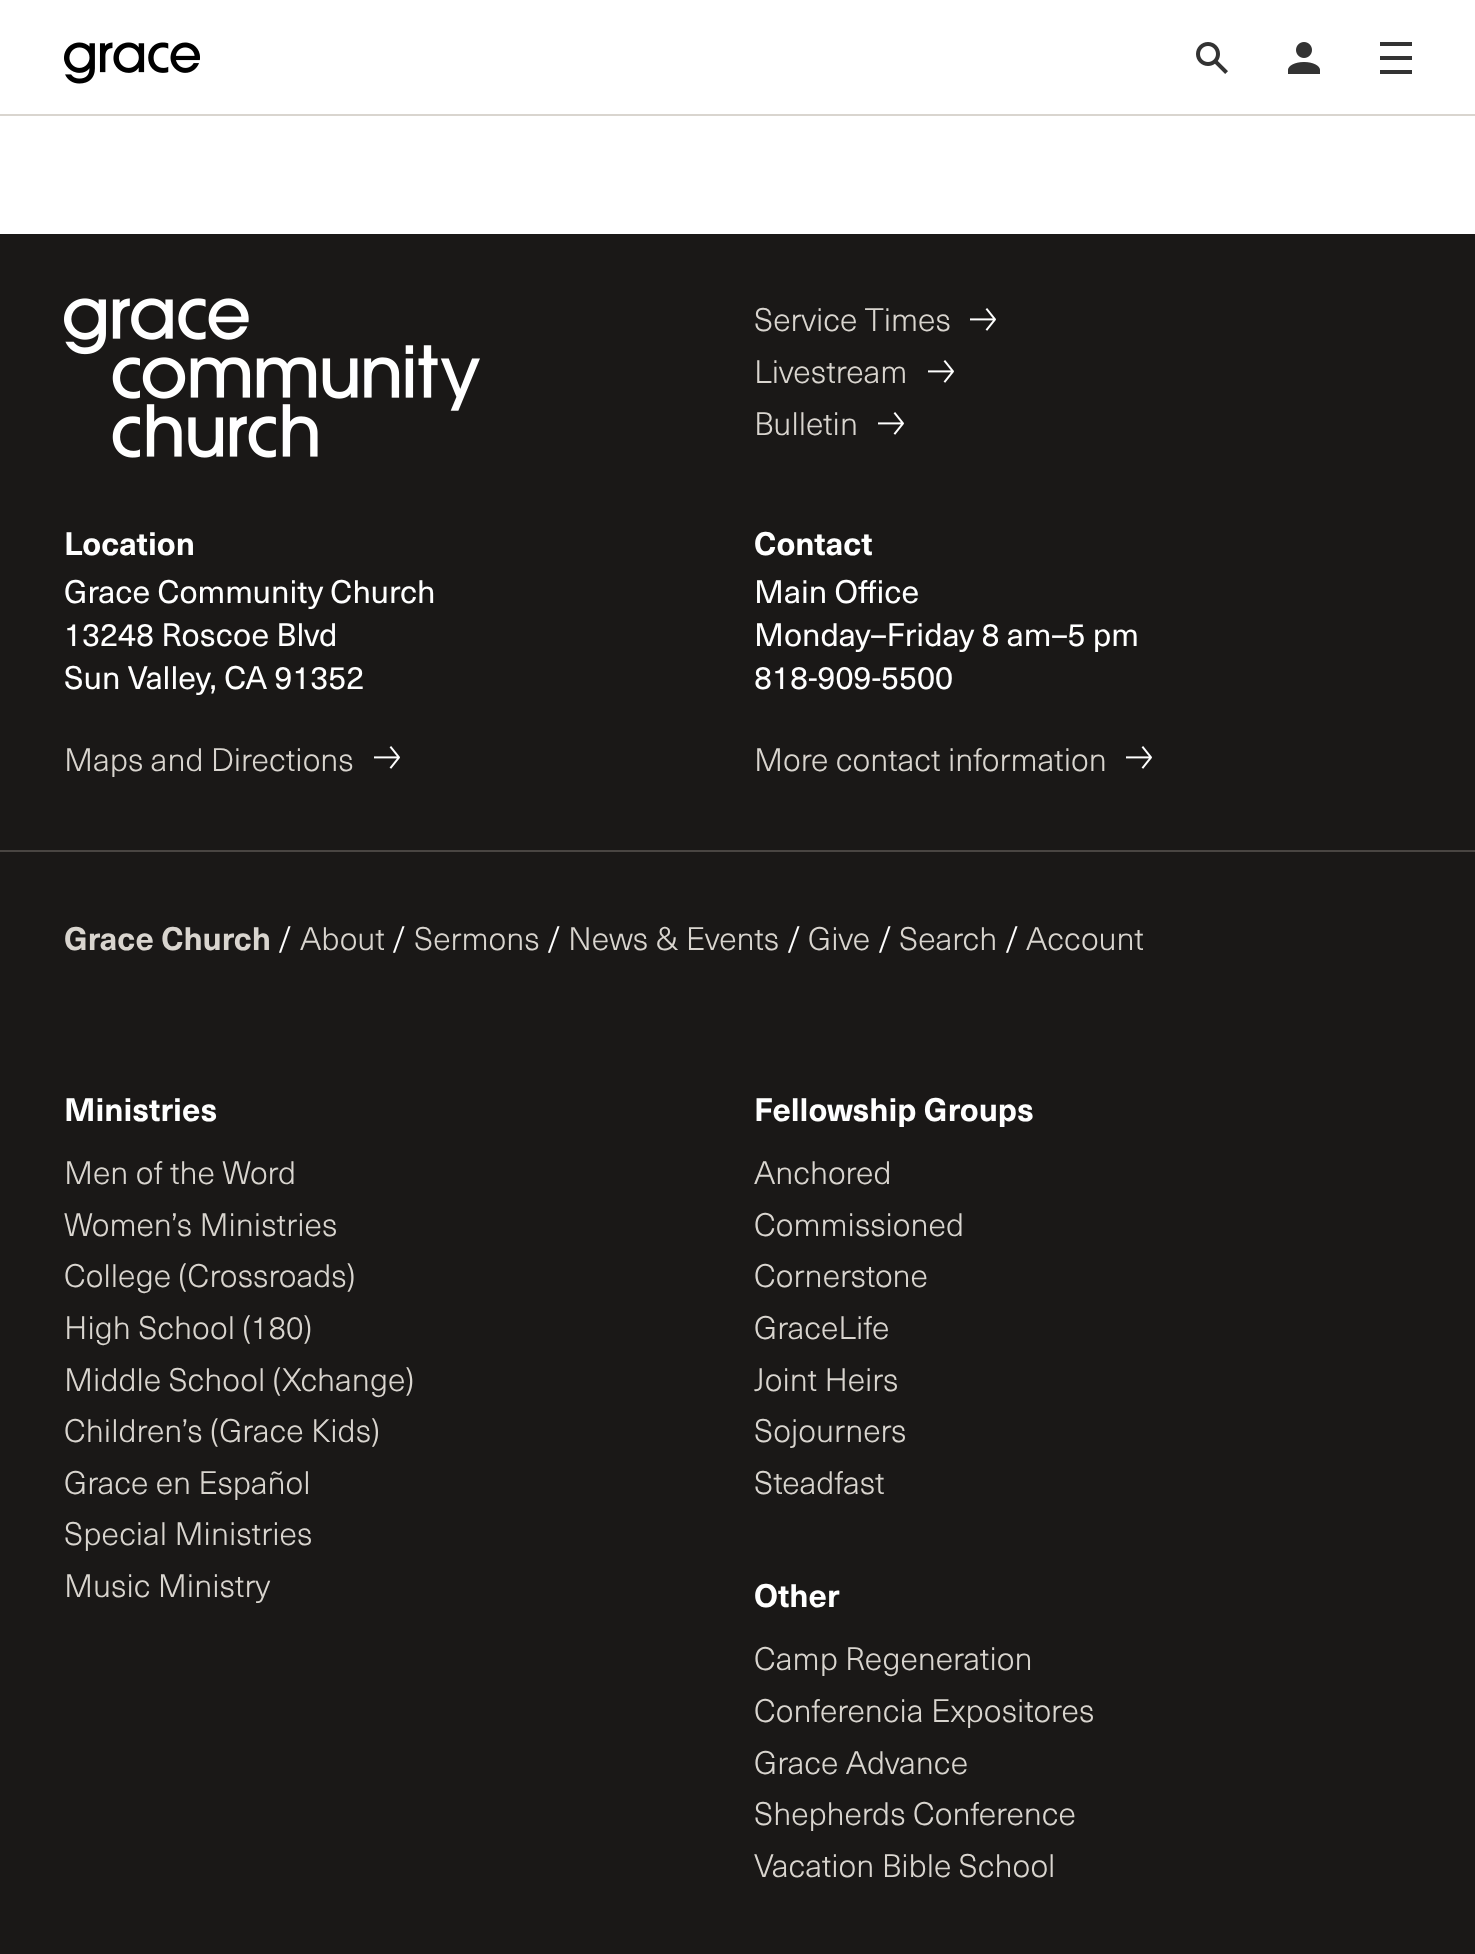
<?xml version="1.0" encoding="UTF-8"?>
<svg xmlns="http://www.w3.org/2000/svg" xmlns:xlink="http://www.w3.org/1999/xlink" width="1475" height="1954">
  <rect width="100%" height="100%" fill="#ffffff" />
  <rect y="114" width="1475" height="2" fill="#d9d5cf" />
  <image x="64" y="42" width="136" height="42" xlink:href="image1.png" />
  <image x="1196" y="42" width="32" height="32" xlink:href="image2.png" />
  <image x="1288" y="42" width="32" height="32" xlink:href="image3.png" />
  <rect x="1380" y="42" width="32" height="4" fill="#333333" />
  <rect x="1380" y="56" width="32" height="4" fill="#333333" />
  <rect x="1380" y="70" width="32" height="4" fill="#333333" />
  <rect y="234" width="1475" height="1720" fill="#1a1817" />
  <rect y="850" width="1475" height="2" fill="#494542" />
  <image x="64" y="298" width="416" height="160" xlink:href="image4.png" />
  <image x="970" y="308" width="26" height="23" xlink:href="image5.png" />
  <image x="928" y="360" width="26" height="23" xlink:href="image5.png" />
  <image x="878" y="412" width="26" height="23" xlink:href="image5.png" />
  <image x="374" y="746" width="26" height="23" xlink:href="image5.png" />
  <image x="1126" y="746" width="26" height="23" xlink:href="image5.png" />
  <text x="754" y="331" style="font-family: 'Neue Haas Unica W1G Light'; font-size: 32px; font-weight: 300; fill: #d9d5cf">Service Times</text>
  <text x="754" y="383" style="font-family: 'Neue Haas Unica W1G Light'; font-size: 32px; font-weight: 300; fill: #d9d5cf">Livestream</text>
  <text x="754" y="435" style="font-family: 'Neue Haas Unica W1G Light'; font-size: 32px; font-weight: 300; fill: #d9d5cf">Bulletin</text>
  <text x="64" y="555" style="font-family: 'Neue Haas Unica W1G'; font-size: 32px; font-weight: bold; fill: #ffffff">Location</text>
  <text x="64" y="603" style="font-family: 'Neue Haas Unica W1G'; font-size: 32px; fill: #ffffff">Grace Community Church</text>
  <text x="64" y="646" style="font-family: 'Neue Haas Unica W1G'; font-size: 32px; fill: #ffffff">13248 Roscoe Blvd</text>
  <text x="64" y="689" style="font-family: 'Neue Haas Unica W1G'; font-size: 32px; fill: #ffffff">Sun Valley, CA 91352</text>
  <text x="64" y="771" style="font-family: 'Neue Haas Unica W1G Light'; font-size: 32px; font-weight: 300; fill: #d9d5cf">Maps and Directions</text>
  <text x="754" y="555" style="font-family: 'Neue Haas Unica W1G'; font-size: 32px; font-weight: bold; fill: #ffffff">Contact</text>
  <text x="754" y="603" style="font-family: 'Neue Haas Unica W1G'; font-size: 32px; fill: #ffffff">Main Office</text>
  <text x="754" y="646" style="font-family: 'Neue Haas Unica W1G'; font-size: 32px; fill: #ffffff">Monday–Friday 8 am–5 pm</text>
  <text x="754" y="689" style="font-family: 'Neue Haas Unica W1G'; font-size: 32px; fill: #ffffff">818-909-5500</text>
  <text x="754" y="771" style="font-family: 'Neue Haas Unica W1G Light'; font-size: 32px; font-weight: 300; fill: #d9d5cf">More contact information</text>
  <text x="64" y="950" style="font-family: 'Neue Haas Unica W1G'; font-size: 32px; font-weight: bold; fill: #d9d5cf">Grace Church</text>
  <text x="278" y="950" style="font-family: 'Neue Haas Unica W1G Light'; font-size: 32px; font-weight: 300; fill: #ffffff">/</text>
  <text x="300" y="950" style="font-family: 'Neue Haas Unica W1G Light'; font-size: 32px; font-weight: 300; fill: #d9d5cf">About</text>
  <text x="392" y="950" style="font-family: 'Neue Haas Unica W1G Light'; font-size: 32px; font-weight: 300; fill: #ffffff">/</text>
  <text x="414" y="950" style="font-family: 'Neue Haas Unica W1G Light'; font-size: 32px; font-weight: 300; fill: #d9d5cf">Sermons</text>
  <text x="547" y="950" style="font-family: 'Neue Haas Unica W1G Light'; font-size: 32px; font-weight: 300; fill: #ffffff">/</text>
  <text x="568" y="950" style="font-family: 'Neue Haas Unica W1G Light'; font-size: 32px; font-weight: 300; fill: #d9d5cf">News &amp; Events</text>
  <text x="787" y="950" style="font-family: 'Neue Haas Unica W1G Light'; font-size: 32px; font-weight: 300; fill: #ffffff">/</text>
  <text x="808" y="950" style="font-family: 'Neue Haas Unica W1G Light'; font-size: 32px; font-weight: 300; fill: #d9d5cf">Give</text>
  <text x="878" y="950" style="font-family: 'Neue Haas Unica W1G Light'; font-size: 32px; font-weight: 300; fill: #ffffff">/</text>
  <text x="899" y="950" style="font-family: 'Neue Haas Unica W1G Light'; font-size: 32px; font-weight: 300; fill: #d9d5cf">Search</text>
  <text x="1005" y="950" style="font-family: 'Neue Haas Unica W1G Light'; font-size: 32px; font-weight: 300; fill: #ffffff">/</text>
  <text x="1026" y="950" style="font-family: 'Neue Haas Unica W1G Light'; font-size: 32px; font-weight: 300; fill: #d9d5cf">Account</text>
  <text x="64" y="1121" style="font-family: 'Neue Haas Unica W1G'; font-size: 32px; font-weight: bold; fill: #ffffff">Ministries</text>
  <text x="64" y="1184" style="font-family: 'Neue Haas Unica W1G Light'; font-size: 32px; font-weight: 300; fill: #d9d5cf">Men of the Word</text>
  <text x="64" y="1236" style="font-family: 'Neue Haas Unica W1G Light'; font-size: 32px; font-weight: 300; fill: #d9d5cf">Women’s Ministries</text>
  <text x="64" y="1287" style="font-family: 'Neue Haas Unica W1G Light'; font-size: 32px; font-weight: 300; fill: #d9d5cf">College (Crossroads)</text>
  <text x="64" y="1339" style="font-family: 'Neue Haas Unica W1G Light'; font-size: 32px; font-weight: 300; fill: #d9d5cf">High School (180)</text>
  <text x="64" y="1391" style="font-family: 'Neue Haas Unica W1G Light'; font-size: 32px; font-weight: 300; fill: #d9d5cf">Middle School (Xchange)</text>
  <text x="64" y="1442" style="font-family: 'Neue Haas Unica W1G Light'; font-size: 32px; font-weight: 300; fill: #d9d5cf">Children’s (Grace Kids)</text>
  <text x="64" y="1494" style="font-family: 'Neue Haas Unica W1G Light'; font-size: 32px; font-weight: 300; fill: #d9d5cf">Grace en Español</text>
  <text x="64" y="1545" style="font-family: 'Neue Haas Unica W1G Light'; font-size: 32px; font-weight: 300; fill: #d9d5cf">Special Ministries</text>
  <text x="64" y="1597" style="font-family: 'Neue Haas Unica W1G Light'; font-size: 32px; font-weight: 300; fill: #d9d5cf">Music Ministry</text>
  <text x="754" y="1121" style="font-family: 'Neue Haas Unica W1G'; font-size: 32px; font-weight: bold; fill: #ffffff">Fellowship Groups</text>
  <text x="754" y="1184" style="font-family: 'Neue Haas Unica W1G Light'; font-size: 32px; font-weight: 300; fill: #d9d5cf">Anchored</text>
  <text x="754" y="1236" style="font-family: 'Neue Haas Unica W1G Light'; font-size: 32px; font-weight: 300; fill: #d9d5cf">Commissioned</text>
  <text x="754" y="1287" style="font-family: 'Neue Haas Unica W1G Light'; font-size: 32px; font-weight: 300; fill: #d9d5cf">Cornerstone</text>
  <text x="754" y="1339" style="font-family: 'Neue Haas Unica W1G Light'; font-size: 32px; font-weight: 300; fill: #d9d5cf">GraceLife</text>
  <text x="754" y="1391" style="font-family: 'Neue Haas Unica W1G Light'; font-size: 32px; font-weight: 300; fill: #d9d5cf">Joint Heirs</text>
  <text x="754" y="1442" style="font-family: 'Neue Haas Unica W1G Light'; font-size: 32px; font-weight: 300; fill: #d9d5cf">Sojourners</text>
  <text x="754" y="1494" style="font-family: 'Neue Haas Unica W1G Light'; font-size: 32px; font-weight: 300; fill: #d9d5cf">Steadfast</text>
  <text x="754" y="1607" style="font-family: 'Neue Haas Unica W1G'; font-size: 32px; font-weight: bold; fill: #ffffff">Other</text>
  <text x="754" y="1670" style="font-family: 'Neue Haas Unica W1G Light'; font-size: 32px; font-weight: 300; fill: #d9d5cf">Camp Regeneration</text>
  <text x="754" y="1722" style="font-family: 'Neue Haas Unica W1G Light'; font-size: 32px; font-weight: 300; fill: #d9d5cf">Conferencia Expositores</text>
  <text x="754" y="1774" style="font-family: 'Neue Haas Unica W1G Light'; font-size: 32px; font-weight: 300; fill: #d9d5cf">Grace Advance</text>
  <text x="754" y="1825" style="font-family: 'Neue Haas Unica W1G Light'; font-size: 32px; font-weight: 300; fill: #d9d5cf">Shepherds Conference</text>
  <text x="754" y="1877" style="font-family: 'Neue Haas Unica W1G Light'; font-size: 32px; font-weight: 300; fill: #d9d5cf">Vacation Bible School</text>
</svg>
